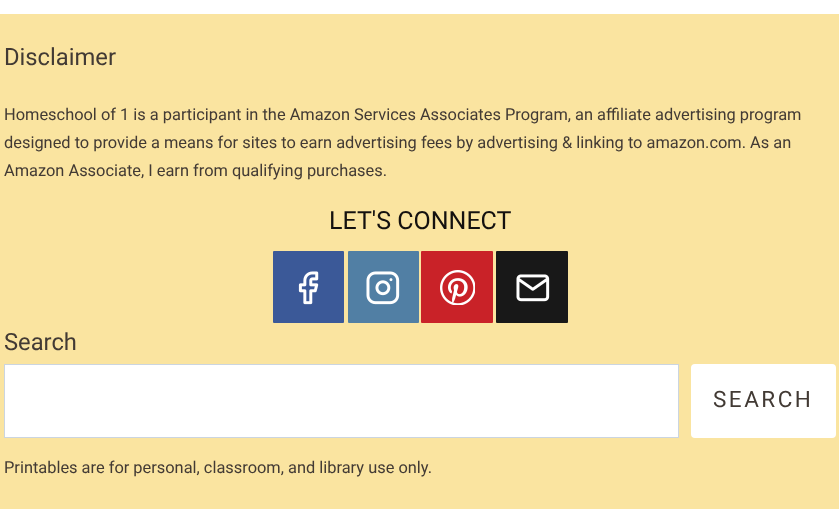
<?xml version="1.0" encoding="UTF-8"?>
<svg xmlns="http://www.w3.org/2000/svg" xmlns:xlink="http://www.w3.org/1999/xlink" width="839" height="509">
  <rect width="100%" height="100%" fill="#ffffff" />
  <rect y="14" width="839" height="495" fill="#fae4a0" />
  <rect x="273" y="251" width="71" height="72" rx="1" fill="#3b5998" />
  <image x="298" y="271" width="21" height="34" xlink:href="image1.png" />
  <rect x="348" y="251" width="71" height="72" rx="1" fill="#517fa4" />
  <image x="366" y="271" width="34" height="34" xlink:href="image2.png" />
  <rect x="421" y="251" width="72" height="72" rx="1" fill="#c92228" />
  <image x="440" y="270" width="35" height="35" xlink:href="image3.png" />
  <rect x="496" y="251" width="72" height="72" rx="1" fill="#181818" />
  <image x="516" y="274" width="34" height="28" xlink:href="image4.png" />
  <rect x="4.5" y="364.5" width="674" height="73" fill="#ffffff" stroke="#cbd5e0" />
  <rect x="691" y="364" width="145" height="74" rx="4" fill="#ffffff" />
  <text x="4" y="65" style="font-family: Roboto; font-size: 23.75px; fill: #423a34">Disclaimer</text>
  <text x="4" y="120" style="font-family: Roboto; font-size: 16.4px; fill: #423a34">Homeschool of 1 is a participant in the Amazon Services Associates Program, an affiliate advertising program</text>
  <text x="4" y="148" style="font-family: Roboto; font-size: 16.4px; fill: #423a34">designed to provide a means for sites to earn advertising fees by advertising &amp; linking to amazon.com. As an</text>
  <text x="4" y="176" style="font-family: Roboto; font-size: 16.4px; fill: #423a34">Amazon Associate, I earn from qualifying purchases.</text>
  <text x="329" y="229" style="font-family: Roboto; font-size: 25px; fill: #14110f">LET'S CONNECT</text>
  <text x="4" y="350" style="font-family: Roboto; font-size: 23.75px; fill: #423a34">Search</text>
  <text x="713" y="407" style="font-family: Roboto; font-size: 22.5px; letter-spacing: 2.5px; fill: #423a34">SEARCH</text>
  <text x="4" y="473" style="font-family: Roboto; font-size: 16.4px; fill: #423a34">Printables are for personal, classroom, and library use only.</text>
</svg>
